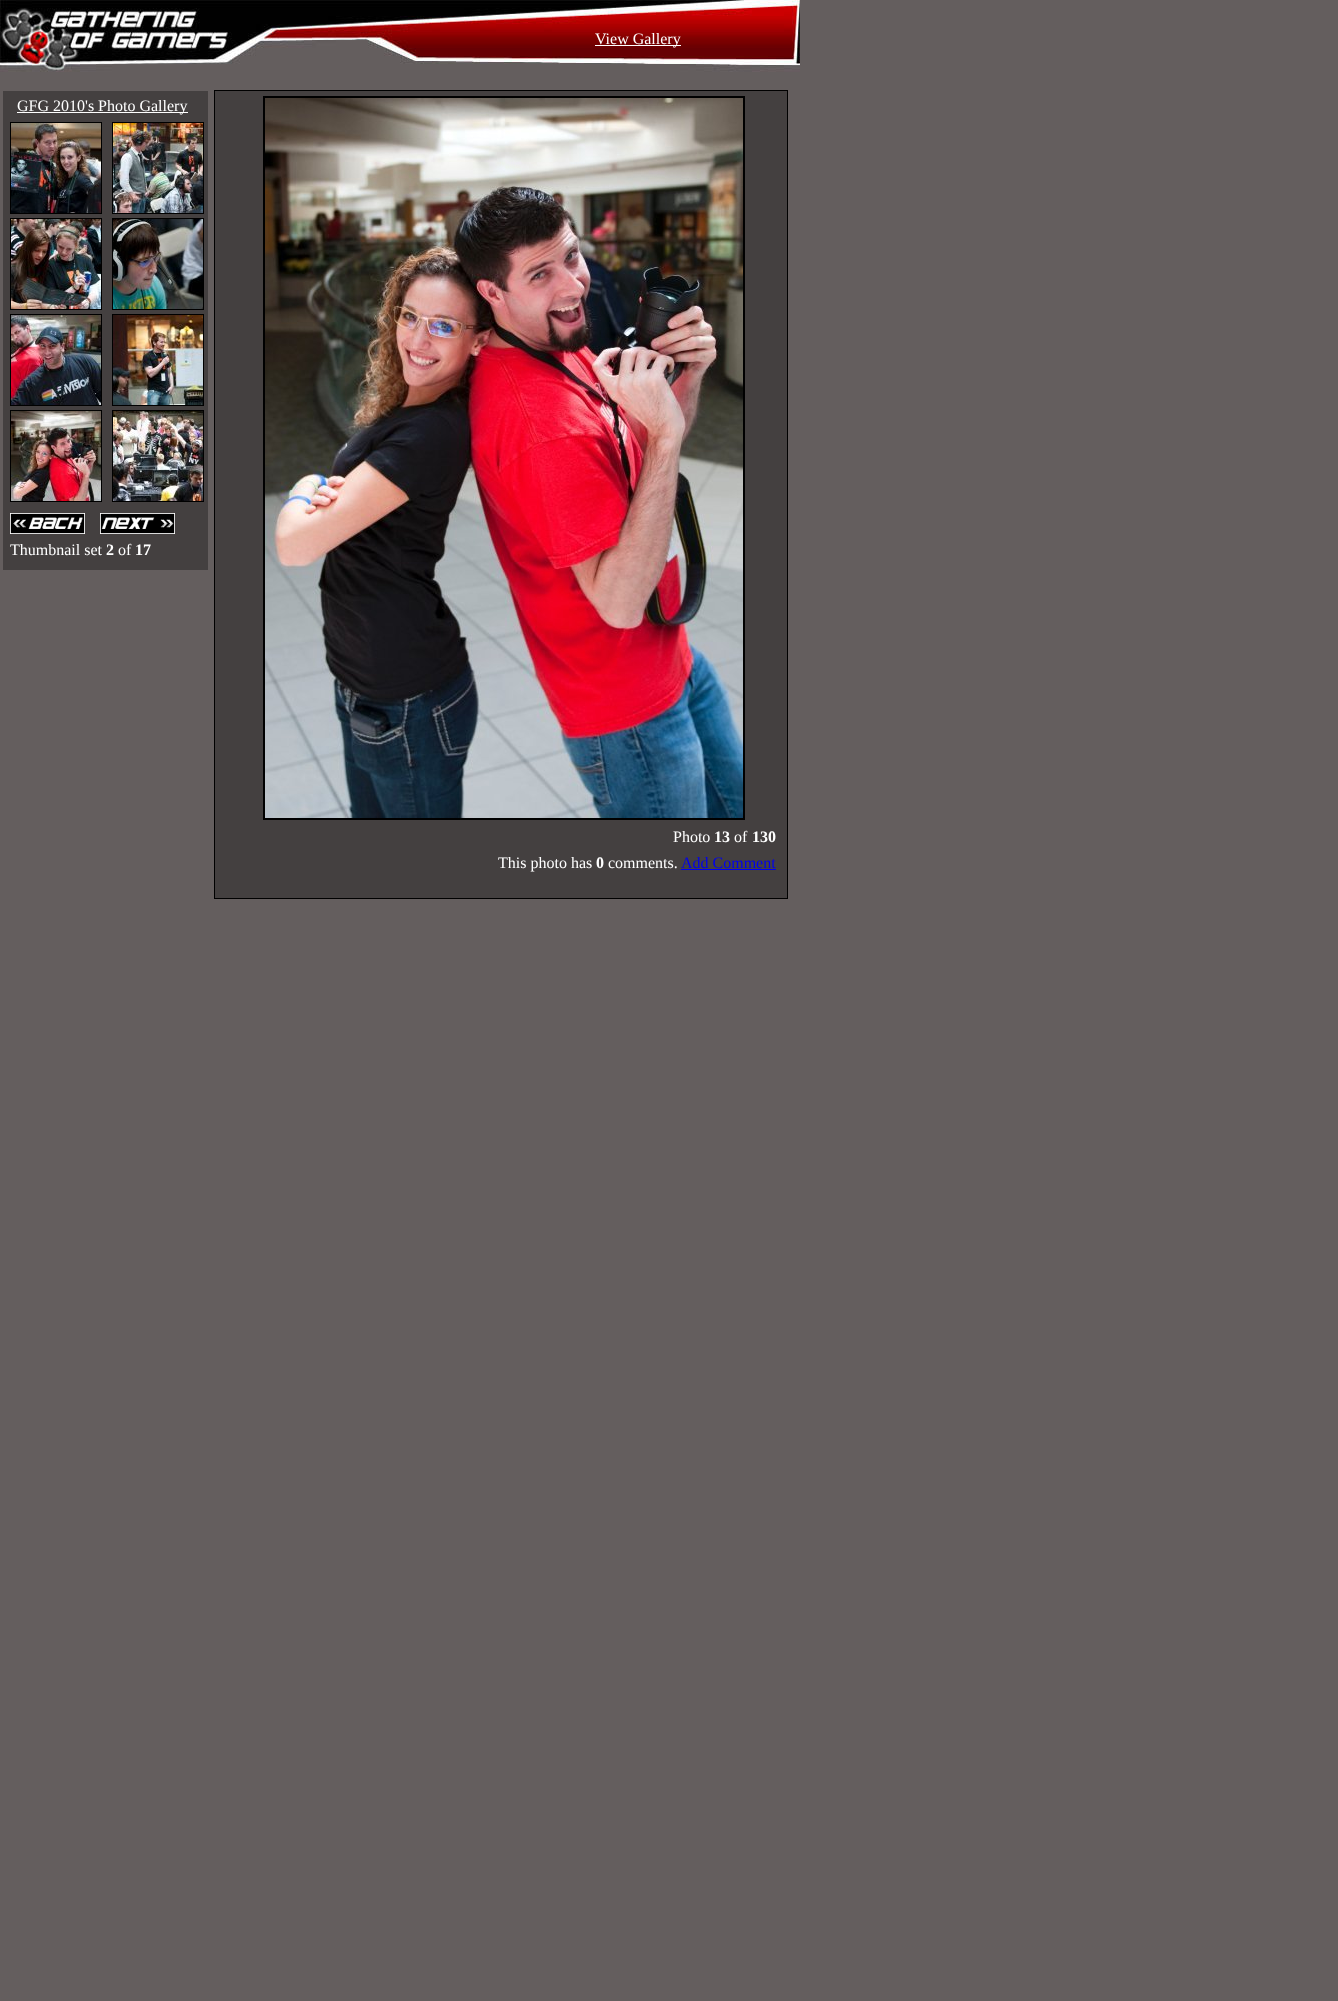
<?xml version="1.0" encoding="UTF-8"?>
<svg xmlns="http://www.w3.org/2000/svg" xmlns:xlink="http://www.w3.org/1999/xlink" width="1338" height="2001">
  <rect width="100%" height="100%" fill="#645e5e" />
  <image x="0" y="0" width="800" height="72" xlink:href="image1.png" />
  <rect x="595" y="45" width="86" height="1" fill="#ffffff" />
  <rect x="3" y="91" width="205" height="479" fill="#444040" />
  <rect x="17" y="112" width="171" height="1" fill="#ffffff" />
  <rect x="10.5" y="122.5" width="91" height="91" fill="none" stroke="#000000" />
  <image x="11" y="123" width="90" height="90" xlink:href="image2.png" />
  <rect x="112.5" y="122.5" width="91" height="91" fill="none" stroke="#000000" />
  <image x="113" y="123" width="90" height="90" xlink:href="image3.png" />
  <rect x="10.5" y="218.5" width="91" height="91" fill="none" stroke="#000000" />
  <image x="11" y="219" width="90" height="90" xlink:href="image4.png" />
  <rect x="112.5" y="218.5" width="91" height="91" fill="none" stroke="#000000" />
  <image x="113" y="219" width="90" height="90" xlink:href="image5.png" />
  <rect x="10.5" y="314.5" width="91" height="91" fill="none" stroke="#000000" />
  <image x="11" y="315" width="90" height="90" xlink:href="image6.png" />
  <rect x="112.5" y="314.5" width="91" height="91" fill="none" stroke="#000000" />
  <image x="113" y="315" width="90" height="90" xlink:href="image7.png" />
  <rect x="10.5" y="410.5" width="91" height="91" fill="none" stroke="#000000" />
  <image x="11" y="411" width="90" height="90" xlink:href="image8.png" />
  <rect x="112.5" y="410.5" width="91" height="91" fill="none" stroke="#000000" />
  <image x="113" y="411" width="90" height="90" xlink:href="image9.png" />
  <image x="10" y="513" width="75" height="21" xlink:href="image10.png" />
  <image x="100" y="513" width="75" height="21" xlink:href="image11.png" />
  <rect x="214.5" y="90.5" width="573" height="808" fill="#444040" stroke="#000000" />
  <rect x="264" y="97" width="480" height="722" fill="none" stroke="#000000" stroke-width="2" />
  <image x="265" y="98" width="478" height="720" xlink:href="image12.png" />
  <rect x="681" y="869" width="95" height="1" fill="#0000ee" />
  <text x="595" y="44" style="font-family: Liberation Serif; font-size: 16px; fill: #ffffff">View Gallery</text>
  <text x="17" y="111" style="font-family: Liberation Serif; font-size: 16px; fill: #ffffff">GFG 2010's Photo Gallery</text>
  <text x="10" y="555" style="font-family: Liberation Serif; font-size: 16px; fill: #ffffff">Thumbnail set</text>
  <text x="106" y="555" style="font-family: Liberation Serif; font-size: 16px; font-weight: bold; fill: #ffffff">2</text>
  <text x="118" y="555" style="font-family: Liberation Serif; font-size: 16px; fill: #ffffff">of</text>
  <text x="135" y="555" style="font-family: Liberation Serif; font-size: 16px; font-weight: bold; fill: #ffffff">17</text>
  <text x="673" y="842" style="font-family: Liberation Serif; font-size: 16px; fill: #ffffff">Photo</text>
  <text x="714" y="842" style="font-family: Liberation Serif; font-size: 16px; font-weight: bold; fill: #ffffff">13</text>
  <text x="734" y="842" style="font-family: Liberation Serif; font-size: 16px; fill: #ffffff">of</text>
  <text x="752" y="842" style="font-family: Liberation Serif; font-size: 16px; font-weight: bold; fill: #ffffff">130</text>
  <text x="498" y="868" style="font-family: Liberation Serif; font-size: 16px; fill: #ffffff">This photo has</text>
  <text x="596" y="868" style="font-family: Liberation Serif; font-size: 16px; font-weight: bold; fill: #ffffff">0</text>
  <text x="608" y="868" style="font-family: Liberation Serif; font-size: 16px; fill: #ffffff">comments.</text>
  <text x="681" y="868" style="font-family: Liberation Serif; font-size: 16px; fill: #0000ee">Add Comment</text>
</svg>
